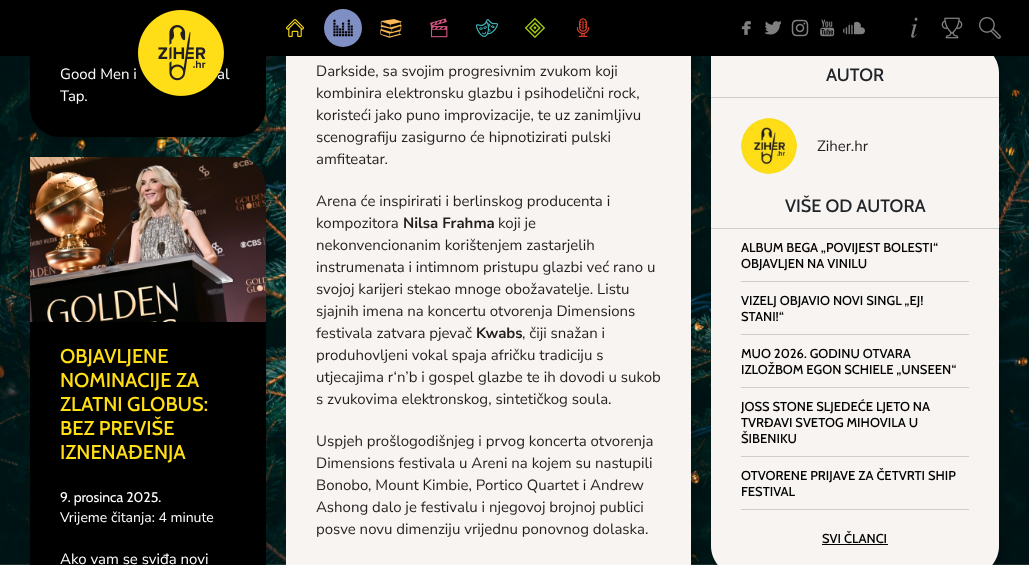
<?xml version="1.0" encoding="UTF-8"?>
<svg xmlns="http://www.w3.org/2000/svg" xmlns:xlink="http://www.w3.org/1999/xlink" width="1029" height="565">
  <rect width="100%" height="100%" fill="#ffffff" />
  <image x="0" y="56" width="1029" height="509" xlink:href="image1.png" />
  <rect x="35" y="-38" width="236" height="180" rx="30" fill="#000000" fill-opacity="0.1" filter="blur(2.5px)" />
  <path d="M 30 -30 h 206 c 16.5 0 30 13.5 30 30 v 107 c 0 16.5 -13.5 30 -30 30 h -176 c -16.5 0 -30 -13.5 -30 -30 z" fill="#000000" />
  <rect x="291" y="-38" width="405" height="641" rx="30" fill="#000000" fill-opacity="0.1" filter="blur(2.5px)" />
  <rect x="716" y="48" width="288" height="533" rx="30" fill="#000000" fill-opacity="0.1" filter="blur(2.5px)" />
  <path d="M 711 43 h 258 c 16.5 0 30 13.5 30 30 v 473 c 0 16.5 -13.5 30 -30 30 h -228 c -16.5 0 -30 -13.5 -30 -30 z" fill="#f7f4f2" />
  <rect width="1029" height="56" fill="#000000" />
  <image x="286" y="19" width="18" height="18" xlink:href="image3.png" />
  <circle cx="343" cy="28" r="19" fill="#808fc3" />
  <image x="333" y="19" width="20" height="18" xlink:href="image4.png" />
  <image x="380" y="19" width="22" height="19" xlink:href="image5.png" />
  <image x="430" y="18" width="18" height="20" xlink:href="image6.png" />
  <image x="476" y="19" width="22" height="18" xlink:href="image7.png" />
  <image x="524" y="17" width="22" height="22" xlink:href="image8.png" />
  <image x="576" y="18" width="14" height="19" xlink:href="image9.png" />
  <image x="741" y="21" width="10" height="14" xlink:href="image10.png" />
  <image x="764" y="21" width="18" height="14" xlink:href="image11.png" />
  <image x="791" y="19" width="18" height="18" xlink:href="image12.png" />
  <image x="820" y="19" width="15" height="18" xlink:href="image13.png" />
  <image x="843" y="21" width="22" height="14" xlink:href="image14.png" />
  <image x="911" y="17" width="7" height="21" xlink:href="image15.png" />
  <image x="941" y="17" width="22" height="22" xlink:href="image16.png" />
  <image x="979" y="17" width="22" height="22" xlink:href="image17.png" />
  <rect x="35" y="162" width="236" height="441" rx="30" fill="#000000" fill-opacity="0.1" filter="blur(2.5px)" />
  <path d="M 30 157 h 206 c 16.5 0 30 13.5 30 30 v 378 c 0 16.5 -13.5 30 -30 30 h -176 c -16.5 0 -30 -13.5 -30 -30 z" fill="#000000" />
  <image x="30" y="157" width="236" height="165" xlink:href="image18.png" />
  <rect x="286" y="56" width="405" height="509" fill="#f7f4f2" />
  <rect x="711" y="97" width="288" height="1" fill="#cdcdcd" />
  <image x="741" y="118" width="56" height="56" xlink:href="image19.png" />
  <rect x="711" y="228" width="288" height="1" fill="#cdcdcd" />
  <rect x="741" y="281" width="228" height="1" fill="#cdcdcd" />
  <rect x="741" y="334" width="228" height="1" fill="#cdcdcd" />
  <rect x="741" y="387" width="228" height="1" fill="#cdcdcd" />
  <rect x="741" y="456" width="228" height="1" fill="#cdcdcd" />
  <rect x="741" y="509" width="228" height="1" fill="#cdcdcd" />
  <rect x="822" y="544" width="66" height="1" fill="#000000" />
  <text x="60" y="79" style="font-family: Nunito Sans; font-size: 15px; fill: #ffffff">Good Men i</text>
  <text x="217" y="79" style="font-family: Nunito Sans; font-size: 15px; fill: #ffffff">al</text>
  <image x="138" y="10" width="86" height="86" xlink:href="image2.png" />
  <text x="60" y="101" style="font-family: Nunito Sans; font-size: 15px; fill: #ffffff">Tap.</text>
  <text x="60" y="363" style="font-family: Cabin; font-size: 20px; font-weight: 500; fill: #ffde16">OBJAVLJENE</text>
  <text x="60" y="387" style="font-family: Cabin; font-size: 20px; font-weight: 500; fill: #ffde16">NOMINACIJE ZA</text>
  <text x="60" y="411" style="font-family: Cabin; font-size: 20px; font-weight: 500; fill: #ffde16">ZLATNI GLOBUS:</text>
  <text x="60" y="435" style="font-family: Cabin; font-size: 20px; font-weight: 500; fill: #ffde16">BEZ PREVIŠE</text>
  <text x="60" y="459" style="font-family: Cabin; font-size: 20px; font-weight: 500; fill: #ffde16">IZNENAĐENJA</text>
  <text x="60" y="502" style="font-family: Cabin; font-size: 14px; fill: #ffffff">9. prosinca 2025.</text>
  <text x="60" y="522" style="font-family: Nunito Sans; font-size: 14px; fill: #ffffff">Vrijeme čitanja: 4 minute</text>
  <text x="60" y="564" style="font-family: Nunito Sans; font-size: 15px; fill: #ffffff">Ako vam se sviđa novi</text>
  <text x="316" y="76" style="font-family: Nunito Sans; font-size: 15px; fill: #221f1f">Darkside, sa svojim progresivnim zvukom koji</text>
  <text x="316" y="98" style="font-family: Nunito Sans; font-size: 15px; fill: #221f1f">kombinira elektronsku glazbu i psihodelični rock,</text>
  <text x="316" y="120" style="font-family: Nunito Sans; font-size: 15px; fill: #221f1f">koristeći jako puno improvizacije, te uz zanimljivu</text>
  <text x="316" y="142" style="font-family: Nunito Sans; font-size: 15px; fill: #221f1f">scenografiju zasigurno će hipnotizirati pulski</text>
  <text x="316" y="164" style="font-family: Nunito Sans; font-size: 15px; fill: #221f1f">amfiteatar.</text>
  <text x="316" y="206" style="font-family: Nunito Sans; font-size: 15px; fill: #221f1f">Arena će inspirirati i berlinskog producenta i</text>
  <text x="316" y="228" style="font-family: Nunito Sans; font-size: 15px; fill: #221f1f">kompozitora</text>
  <text x="403" y="228" style="font-family: Nunito Sans; font-size: 15px; font-weight: bold; fill: #221f1f">Nilsa Frahma</text>
  <text x="498" y="228" style="font-family: Nunito Sans; font-size: 15px; fill: #221f1f">koji je</text>
  <text x="316" y="250" style="font-family: Nunito Sans; font-size: 15px; fill: #221f1f">nekonvencionanim korištenjem zastarjelih</text>
  <text x="316" y="272" style="font-family: Nunito Sans; font-size: 15px; fill: #221f1f">instrumenata i intimnom pristupu glazbi već rano u</text>
  <text x="316" y="294" style="font-family: Nunito Sans; font-size: 15px; fill: #221f1f">svojoj karijeri stekao mnoge obožavatelje. Listu</text>
  <text x="316" y="316" style="font-family: Nunito Sans; font-size: 15px; fill: #221f1f">sjajnih imena na koncertu otvorenja Dimensions</text>
  <text x="316" y="338" style="font-family: Nunito Sans; font-size: 15px; fill: #221f1f">festivala zatvara pjevač</text>
  <text x="476" y="338" style="font-family: Nunito Sans; font-size: 15px; font-weight: bold; fill: #221f1f">Kwabs</text>
  <text x="522" y="338" style="font-family: Nunito Sans; font-size: 15px; fill: #221f1f">, čiji snažan i</text>
  <text x="316" y="360" style="font-family: Nunito Sans; font-size: 15px; fill: #221f1f">produhovljeni vokal spaja afričku tradiciju s</text>
  <text x="316" y="382" style="font-family: Nunito Sans; font-size: 15px; fill: #221f1f">utjecajima r‘n’b i gospel glazbe te ih dovodi u sukob</text>
  <text x="316" y="404" style="font-family: Nunito Sans; font-size: 15px; fill: #221f1f">s zvukovima elektronskog, sintetičkog soula.</text>
  <text x="316" y="446" style="font-family: Nunito Sans; font-size: 15px; fill: #221f1f">Uspjeh prošlogodišnjeg i prvog koncerta otvorenja</text>
  <text x="316" y="468" style="font-family: Nunito Sans; font-size: 15px; fill: #221f1f">Dimensions festivala u Areni na kojem su nastupili</text>
  <text x="316" y="490" style="font-family: Nunito Sans; font-size: 15px; fill: #221f1f">Bonobo, Mount Kimbie, Portico Quartet i Andrew</text>
  <text x="316" y="512" style="font-family: Nunito Sans; font-size: 15px; fill: #221f1f">Ashong dalo je festivalu i njegovoj brojnoj publici</text>
  <text x="316" y="534" style="font-family: Nunito Sans; font-size: 15px; fill: #221f1f">posve novu dimenziju vrijednu ponovnog dolaska.</text>
  <text x="826" y="81" style="font-family: Cabin; font-size: 18px; font-weight: 500; fill: #212529">AUTOR</text>
  <text x="817" y="151" style="font-family: Nunito Sans; font-size: 15px; fill: #221f1f">Ziher.hr</text>
  <text x="785" y="212" style="font-family: Cabin; font-size: 18px; font-weight: 500; fill: #212529">VIŠE OD AUTORA</text>
  <text x="741" y="252" style="font-family: Cabin; font-size: 13px; font-weight: 500; fill: #000000">ALBUM BEGA „POVIJEST BOLESTI“</text>
  <text x="741" y="268" style="font-family: Cabin; font-size: 13px; font-weight: 500; fill: #000000">OBJAVLJEN NA VINILU</text>
  <text x="741" y="305" style="font-family: Cabin; font-size: 13px; font-weight: 500; fill: #000000">VIZELJ OBJAVIO NOVI SINGL „EJ!</text>
  <text x="741" y="321" style="font-family: Cabin; font-size: 13px; font-weight: 500; fill: #000000">STANI!“</text>
  <text x="741" y="358" style="font-family: Cabin; font-size: 13px; font-weight: 500; fill: #000000">MUO 2026. GODINU OTVARA</text>
  <text x="741" y="374" style="font-family: Cabin; font-size: 13px; font-weight: 500; fill: #000000">IZLOŽBOM EGON SCHIELE „UNSEEN“</text>
  <text x="741" y="411" style="font-family: Cabin; font-size: 13px; font-weight: 500; fill: #000000">JOSS STONE SLJEDEĆE LJETO NA</text>
  <text x="741" y="427" style="font-family: Cabin; font-size: 13px; font-weight: 500; fill: #000000">TVRĐAVI SVETOG MIHOVILA U</text>
  <text x="741" y="443" style="font-family: Cabin; font-size: 13px; font-weight: 500; fill: #000000">ŠIBENIKU</text>
  <text x="741" y="480" style="font-family: Cabin; font-size: 13px; font-weight: 500; fill: #000000">OTVORENE PRIJAVE ZA ČETVRTI SHIP</text>
  <text x="741" y="496" style="font-family: Cabin; font-size: 13px; font-weight: 500; fill: #000000">FESTIVAL</text>
  <text x="822" y="543" style="font-family: Cabin; font-size: 13px; font-weight: 500; fill: #000000">SVI ČLANCI</text>
</svg>
